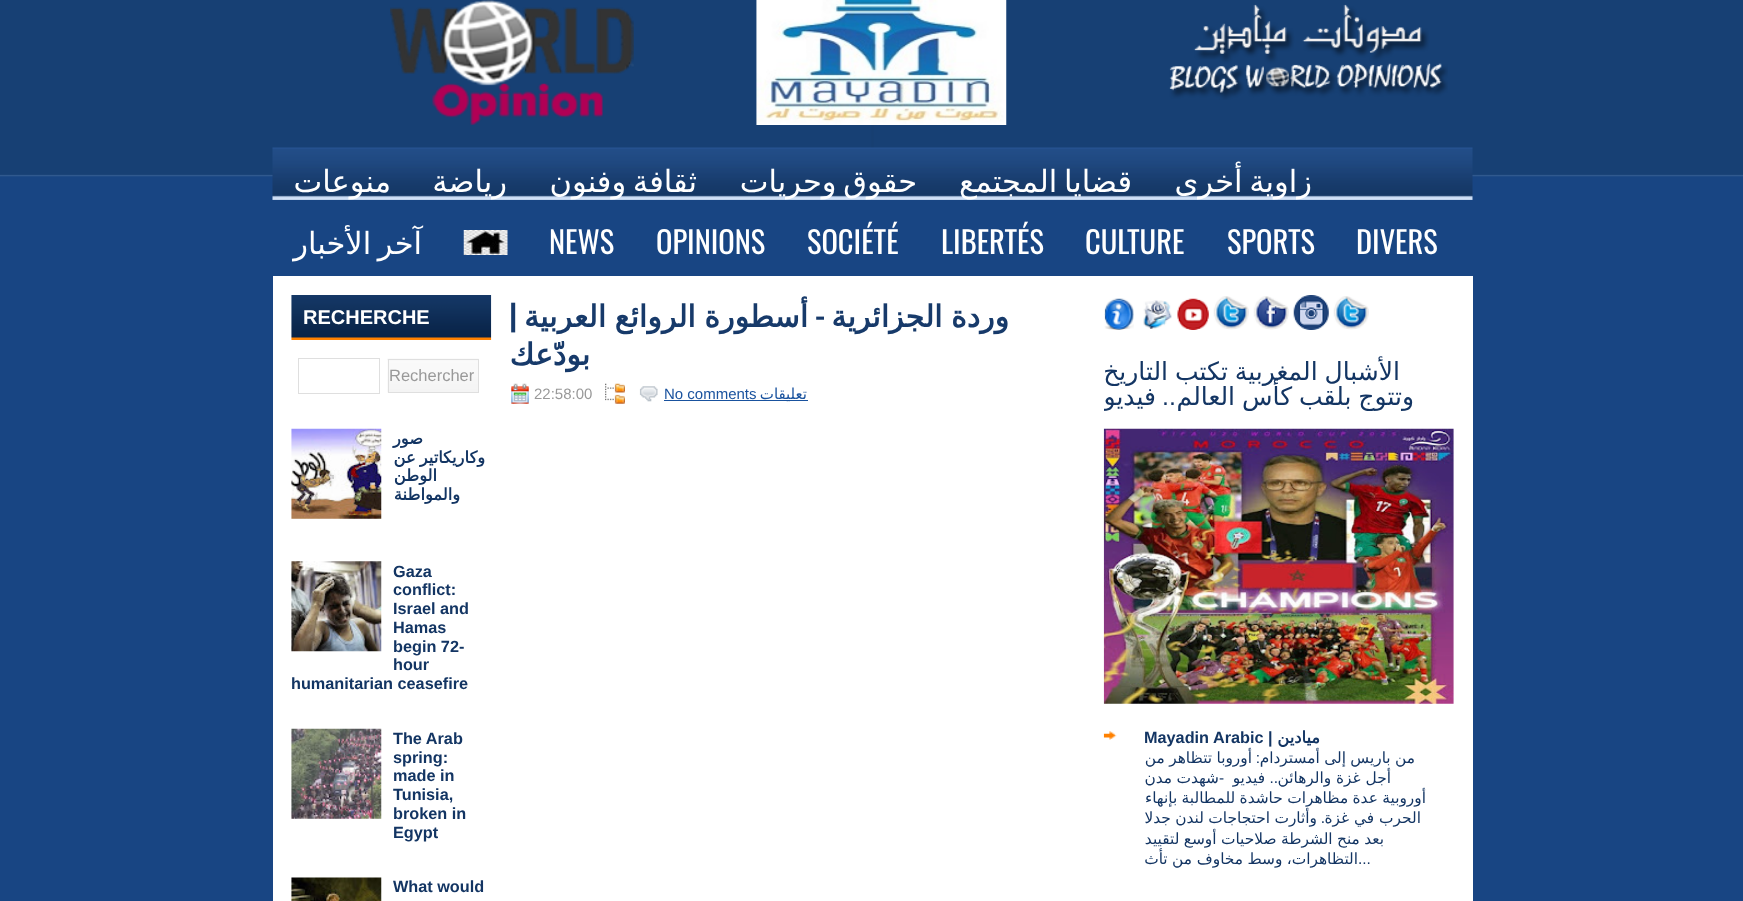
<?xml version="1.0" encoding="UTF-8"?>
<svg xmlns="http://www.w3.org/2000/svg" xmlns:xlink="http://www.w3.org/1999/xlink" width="1743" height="901">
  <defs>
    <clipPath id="clip1"><rect x="1104" y="295" width="350" height="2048" /></clipPath>
  </defs>
  <rect width="100%" height="100%" fill="#184583" />
  <image x="871" y="125" width="3" height="23" xlink:href="image1.png" />
  <image x="0" y="0" width="1743" height="177" xlink:href="image2.png" />
  <image x="1169" y="4" width="279" height="96" xlink:href="image3.png" />
  <image x="756" y="0" width="251" height="125" xlink:href="image4.png" />
  <image x="390" y="0" width="244" height="125" xlink:href="image5.png" />
  <image x="272" y="147" width="1201" height="53" xlink:href="image6.png" />
  <image x="463" y="230" width="45" height="25" xlink:href="image7.png" />
  <rect x="273" y="276" width="1200" height="625" fill="#ffffff" />
  <image x="1333" y="296" width="36" height="34" xlink:href="image8.png" />
  <image x="1293" y="295" width="36" height="35" xlink:href="image9.png" />
  <image x="1253" y="296" width="36" height="34" xlink:href="image10.png" />
  <image x="1213" y="296" width="36" height="34" xlink:href="image8.png" />
  <image x="1177" y="298" width="32" height="32" xlink:href="image11.png" />
  <image x="1143" y="300" width="29" height="29" xlink:href="image12.png" />
  <image x="1104" y="298" width="30" height="32" xlink:href="image13.png" />
  <image x="1103" y="428" width="351" height="276" xlink:href="image14.png" />
  <image x="1103" y="731" width="14" height="9" xlink:href="image15.png" />
  <rect x="664" y="400" width="144" height="1" fill="#19529e" />
  <image x="639" y="386" width="19" height="16" xlink:href="image16.png" />
  <image x="605" y="383" width="20" height="21" xlink:href="image17.png" />
  <image x="511" y="383" width="18" height="21" xlink:href="image18.png" />
  <image x="291" y="295" width="201" height="45" xlink:href="image19.png" />
  <image x="387" y="358" width="92" height="35" xlink:href="image20.png" />
  <rect x="388.5" y="359.5" width="90" height="33" fill="none" stroke="#dfdfdf" />
  <rect x="298.5" y="358.5" width="81" height="35" fill="none" stroke="#dfdfdf" />
  <image x="291" y="428" width="91" height="91" xlink:href="image21.png" />
  <image x="291" y="561" width="91" height="91" xlink:href="image22.png" />
  <image x="291" y="728" width="91" height="91" xlink:href="image23.png" />
  <image x="291" y="877" width="91" height="24" xlink:href="image24.png" />
  <text x="1312" y="192" word-spacing="-3" style="font-family: DejaVu Sans; font-size: 30.5px; direction: rtl; fill: #ffffff">زاوية أخرى</text>
  <text x="1132" y="192" word-spacing="-3" style="font-family: DejaVu Sans; font-size: 30.5px; direction: rtl; fill: #ffffff">قضايا المجتمع</text>
  <text x="917" y="192" word-spacing="-3" style="font-family: DejaVu Sans; font-size: 30.5px; direction: rtl; fill: #ffffff">حقوق وحريات</text>
  <text x="697" y="192" word-spacing="-3" style="font-family: DejaVu Sans; font-size: 30.5px; direction: rtl; fill: #ffffff">ثقافة وفنون</text>
  <text x="507" y="192" style="font-family: DejaVu Sans; font-size: 30.5px; direction: rtl; fill: #ffffff">رياضة</text>
  <text x="391" y="192" style="font-family: DejaVu Sans; font-size: 30.5px; direction: rtl; fill: #ffffff">منوعات</text>
  <text x="1356" y="254" style="font-family: Oswald; font-size: 30.5px; fill: #ffffff">DIVERS</text>
  <text x="1227" y="254" style="font-family: Oswald; font-size: 30.5px; fill: #ffffff">SPORTS</text>
  <text x="1085" y="254" style="font-family: Oswald; font-size: 30.5px; fill: #ffffff">CULTURE</text>
  <text x="941" y="254" style="font-family: Oswald; font-size: 30.5px; fill: #ffffff">LIBERTÉS</text>
  <text x="807" y="254" style="font-family: Oswald; font-size: 30.5px; fill: #ffffff">SOCIÉTÉ</text>
  <text x="656" y="254" style="font-family: Oswald; font-size: 30.5px; fill: #ffffff">OPINIONS</text>
  <text x="549" y="254" style="font-family: Oswald; font-size: 30.5px; fill: #ffffff">NEWS</text>
  <text x="422" y="254" word-spacing="-3" style="font-family: DejaVu Sans; font-size: 30.5px; direction: rtl; fill: #ffffff">آخر الأخبار</text>
  <text x="1400" y="380" word-spacing="-1" style="font-family: DejaVu Sans; font-size: 25px; direction: rtl; fill: #133563">الأشبال المغربية تكتب التاريخ</text>
  <text x="1414" y="405" word-spacing="-1" style="font-family: DejaVu Sans; font-size: 25px; direction: rtl; fill: #133563">وتتوج بلقب كأس العالم</text>
  <text x="1176" y="405" style="font-family: Liberation Sans; font-size: 25px; direction: rtl; fill: #133563">..</text>
  <g clip-path="url(#clip1)">
    <text x="1156" y="405" style="font-family: DejaVu Sans; font-size: 25px; direction: rtl; fill: #133563">فيديو</text>
  </g>
  <text x="1320" y="743" style="font-family: DejaVu Sans; font-size: 16.25px; font-weight: bold; direction: rtl; fill: #133563">ميادين</text>
  <text x="1144" y="743" style="font-family: Liberation Sans; font-size: 16.25px; font-weight: bold; fill: #133563">Mayadin Arabic |</text>
  <text x="1415" y="763" word-spacing="-0.5" style="font-family: DejaVu Sans; font-size: 15.4px; direction: rtl; fill: #133563">من باريس إلى أمستردام</text>
  <text x="1260" y="763" style="font-family: Liberation Sans; font-size: 15.4px; direction: rtl; fill: #133563">:</text>
  <text x="1252" y="763" word-spacing="-0.5" style="font-family: DejaVu Sans; font-size: 15.4px; direction: rtl; fill: #133563">أوروبا تتظاهر من</text>
  <text x="1391" y="783" style="font-family: DejaVu Sans; font-size: 15.4px; direction: rtl; fill: #133563">أجل غزة والرهائن</text>
  <text x="1265" y="783" style="font-family: DejaVu Sans; font-size: 15.4px; direction: rtl; fill: #133563">فيديو</text>
  <text x="1219" y="783" style="font-family: Liberation Sans; font-size: 15.4px; fill: #133563">-</text>
  <text x="1219" y="783" word-spacing="-0.5" style="font-family: DejaVu Sans; font-size: 15.4px; direction: rtl; fill: #133563">شهدت مدن</text>
  <text x="1278" y="783" style="font-family: Liberation Sans; font-size: 15.4px; direction: rtl; fill: #133563">..</text>
  <text x="1426" y="803" word-spacing="-0.5" style="font-family: DejaVu Sans; font-size: 15.4px; direction: rtl; fill: #133563">أوروبية عدة مظاهرات حاشدة للمطالبة بإنهاء</text>
  <text x="1421" y="823" style="font-family: DejaVu Sans; font-size: 15.4px; direction: rtl; fill: #133563">الحرب في غزة</text>
  <text x="1325" y="823" style="font-family: Liberation Sans; font-size: 15.4px; direction: rtl; fill: #133563">.</text>
  <text x="1317" y="823" style="font-family: DejaVu Sans; font-size: 15.4px; direction: rtl; fill: #133563">وأثارت</text>
  <text x="1270" y="823" word-spacing="-0.5" style="font-family: DejaVu Sans; font-size: 15.4px; direction: rtl; fill: #133563">احتجاجات لندن جدلا</text>
  <text x="1384" y="844" word-spacing="-0.5" style="font-family: DejaVu Sans; font-size: 15.4px; direction: rtl; fill: #133563">بعد منح الشرطة صلاحيات أوسع لتقييد</text>
  <text x="1358" y="864" style="font-family: Liberation Sans; font-size: 15.4px; fill: #133563">...</text>
  <text x="1358" y="864" word-spacing="-0.5" style="font-family: DejaVu Sans; font-size: 15.4px; direction: rtl; fill: #133563">التظاهرات، وسط مخاوف</text>
  <text x="1192" y="864" word-spacing="-0.5" style="font-family: DejaVu Sans; font-size: 15.4px; direction: rtl; fill: #133563">من تأث</text>
  <text x="1009" y="327" word-spacing="-1" style="font-family: DejaVu Sans; font-size: 30px; font-weight: bold; direction: rtl; fill: #173a6a">وردة الجزائرية</text>
  <text x="825" y="327" style="font-family: Oswald; font-size: 30px; font-weight: bold; direction: rtl; fill: #173a6a">-</text>
  <text x="808" y="327" word-spacing="-1" style="font-family: DejaVu Sans; font-size: 30px; font-weight: bold; direction: rtl; fill: #173a6a">أسطورة الروائع العربية</text>
  <text x="517" y="327" style="font-family: Oswald; font-size: 30px; font-weight: bold; direction: rtl; fill: #173a6a">|</text>
  <text x="590" y="365" style="font-family: DejaVu Sans; font-size: 30px; font-weight: bold; direction: rtl; fill: #173a6a">بودّعك</text>
  <text x="807" y="399" style="font-family: DejaVu Sans; font-size: 15px; direction: rtl; fill: #19529e">تعليقات</text>
  <text x="664" y="399" style="font-family: Liberation Sans; font-size: 15px; fill: #19529e">No comments</text>
  <text x="534" y="399" style="font-family: Liberation Sans; font-size: 15px; fill: #999999">22:58:00</text>
  <text x="303" y="324" style="font-family: Liberation Sans; font-size: 20px; font-weight: bold; fill: #ffffff">RECHERCHE</text>
  <text x="389" y="381" style="font-family: Liberation Sans; font-size: 16.5px; fill: #999999">Rechercher</text>
  <text x="423" y="444" style="font-family: DejaVu Sans; font-size: 16.25px; font-weight: bold; direction: rtl; fill: #133563">صور</text>
  <text x="485" y="463" word-spacing="-1" style="font-family: DejaVu Sans; font-size: 16.25px; font-weight: bold; direction: rtl; fill: #133563">وكاريكاتير عن</text>
  <text x="437" y="481" style="font-family: DejaVu Sans; font-size: 16.25px; font-weight: bold; direction: rtl; fill: #133563">الوطن</text>
  <text x="460" y="500" style="font-family: DejaVu Sans; font-size: 16.25px; font-weight: bold; direction: rtl; fill: #133563">والمواطنة</text>
  <text x="393" y="577" style="font-family: Liberation Sans; font-size: 16.25px; font-weight: bold; fill: #133563">Gaza</text>
  <text x="393" y="595" style="font-family: Liberation Sans; font-size: 16.25px; font-weight: bold; fill: #133563">conflict:</text>
  <text x="393" y="614" style="font-family: Liberation Sans; font-size: 16.25px; font-weight: bold; fill: #133563">Israel and</text>
  <text x="393" y="633" style="font-family: Liberation Sans; font-size: 16.25px; font-weight: bold; fill: #133563">Hamas</text>
  <text x="393" y="652" style="font-family: Liberation Sans; font-size: 16.25px; font-weight: bold; fill: #133563">begin 72-</text>
  <text x="393" y="670" style="font-family: Liberation Sans; font-size: 16.25px; font-weight: bold; fill: #133563">hour</text>
  <text x="291" y="689" style="font-family: Liberation Sans; font-size: 16.25px; font-weight: bold; fill: #133563">humanitarian ceasefire</text>
  <text x="393" y="744" style="font-family: Liberation Sans; font-size: 16.25px; font-weight: bold; fill: #133563">The Arab</text>
  <text x="393" y="763" style="font-family: Liberation Sans; font-size: 16.25px; font-weight: bold; fill: #133563">spring:</text>
  <text x="393" y="781" style="font-family: Liberation Sans; font-size: 16.25px; font-weight: bold; fill: #133563">made in</text>
  <text x="393" y="800" style="font-family: Liberation Sans; font-size: 16.25px; font-weight: bold; fill: #133563">Tunisia,</text>
  <text x="393" y="819" style="font-family: Liberation Sans; font-size: 16.25px; font-weight: bold; fill: #133563">broken in</text>
  <text x="393" y="838" style="font-family: Liberation Sans; font-size: 16.25px; font-weight: bold; fill: #133563">Egypt</text>
  <text x="393" y="892" style="font-family: Liberation Sans; font-size: 16.25px; font-weight: bold; fill: #133563">What would</text>
</svg>
